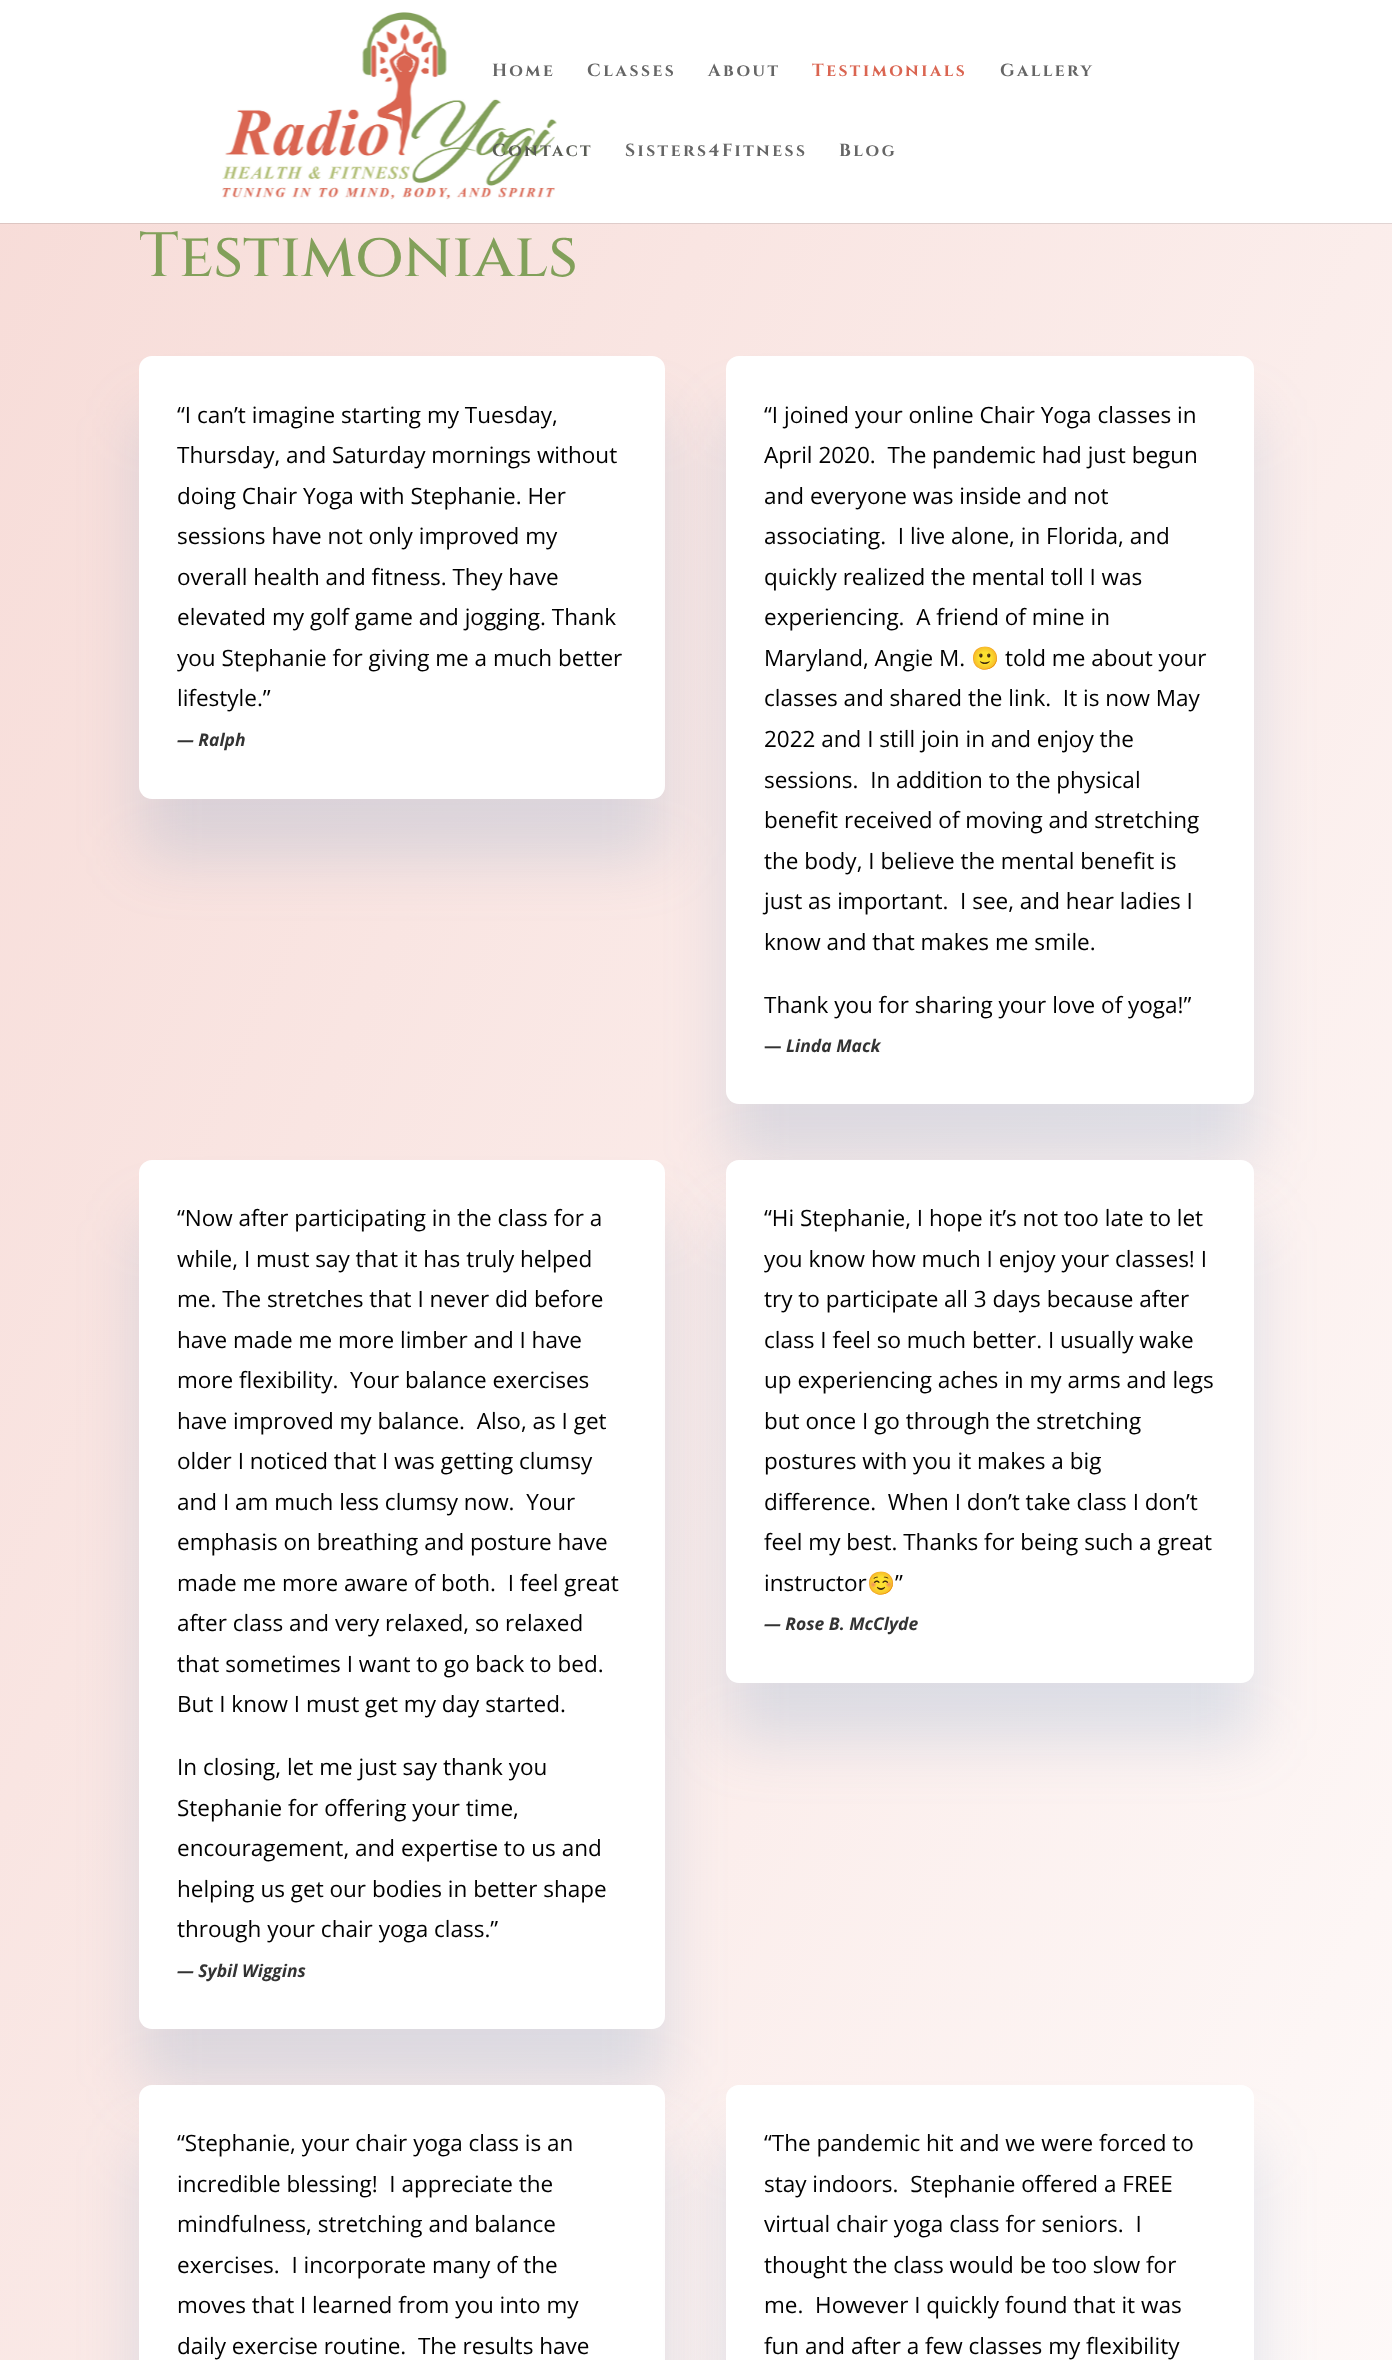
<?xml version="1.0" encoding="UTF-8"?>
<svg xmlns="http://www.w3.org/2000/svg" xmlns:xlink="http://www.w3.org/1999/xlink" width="1392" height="2360">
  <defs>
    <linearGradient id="g1" gradientUnits="userSpaceOnUse" x1="-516" y1="1300" x2="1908" y2="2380"><stop offset="0" stop-color="#f7dcd8" /><stop offset="1" stop-color="#ffffff" /></linearGradient>
  </defs>
  <rect width="100%" height="100%" fill="#ffffff" />
  <rect y="223" width="1392" height="2137" fill="url(#g1)" />
  <path d="M 0 222 v 2 h 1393 v -223 h -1 v 221 z" fill="#000000" fill-opacity="0.1" />
  <rect y="222" width="1392" height="1" fill="#ffffff" />
  <image x="222" y="12" width="335" height="188" xlink:href="image1.png" />
  <rect x="139" y="415" width="526" height="443" rx="13" fill="#6492bc" fill-opacity="0.2" filter="blur(30px)" />
  <rect x="139" y="356" width="526" height="443" rx="13" fill="#ffffff" />
  <rect x="726" y="415" width="528" height="748" rx="13" fill="#6492bc" fill-opacity="0.2" filter="blur(30px)" />
  <rect x="726" y="356" width="528" height="748" rx="13" fill="#ffffff" />
  <rect x="139" y="1219" width="526" height="869" rx="13" fill="#6492bc" fill-opacity="0.2" filter="blur(30px)" />
  <rect x="139" y="1160" width="526" height="869" rx="13" fill="#ffffff" />
  <rect x="726" y="1219" width="528" height="522" rx="13" fill="#6492bc" fill-opacity="0.2" filter="blur(30px)" />
  <rect x="726" y="1160" width="528" height="523" rx="13" fill="#ffffff" />
  <rect x="139" y="2144" width="526" height="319" rx="13" fill="#6492bc" fill-opacity="0.2" filter="blur(30px)" />
  <rect x="139" y="2085" width="526" height="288" rx="13" fill="#ffffff" />
  <rect x="726" y="2144" width="528" height="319" rx="13" fill="#6492bc" fill-opacity="0.2" filter="blur(30px)" />
  <rect x="726" y="2085" width="528" height="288" rx="13" fill="#ffffff" />
  <text x="492" y="76" style="font-family: Cinzel; font-size: 17.5px; font-weight: bold; letter-spacing: 2.5px; fill: #666666">Home</text>
  <text x="587" y="76" style="font-family: Cinzel; font-size: 17.5px; font-weight: bold; letter-spacing: 2.5px; fill: #666666">Classes</text>
  <text x="708" y="76" style="font-family: Cinzel; font-size: 17.5px; font-weight: bold; letter-spacing: 2.5px; fill: #666666">About</text>
  <text x="812" y="76" style="font-family: Cinzel; font-size: 17.5px; font-weight: bold; letter-spacing: 2.5px; fill: #da6551">Testimonials</text>
  <text x="1000" y="76" style="font-family: Cinzel; font-size: 17.5px; font-weight: bold; letter-spacing: 2.5px; fill: #666666">Gallery</text>
  <text x="492" y="156" style="font-family: Cinzel; font-size: 17.5px; font-weight: bold; letter-spacing: 2.5px; fill: #585b53">Contact</text>
  <text x="625" y="156" style="font-family: Cinzel; font-size: 17.5px; font-weight: bold; letter-spacing: 2.5px; fill: #666666">Sisters4Fitness</text>
  <text x="839" y="156" style="font-family: Cinzel; font-size: 17.5px; font-weight: bold; letter-spacing: 2.5px; fill: #666666">Blog</text>
  <text x="139" y="276" style="font-family: Cinzel; font-size: 62.5px; font-weight: 500; fill: #82a05a">Testimonials</text>
  <text x="177" y="423" style="font-family: Open Sans; font-size: 22.5px; fill: #000000">“I can’t imagine starting my Tuesday,</text>
  <text x="177" y="463" style="font-family: Open Sans; font-size: 22.5px; fill: #000000">Thursday, and Saturday mornings without</text>
  <text x="177" y="504" style="font-family: Open Sans; font-size: 22.5px; fill: #000000">doing Chair Yoga with Stephanie. Her</text>
  <text x="177" y="544" style="font-family: Open Sans; font-size: 22.5px; fill: #000000">sessions have not only improved my</text>
  <text x="177" y="585" style="font-family: Open Sans; font-size: 22.5px; fill: #000000">overall health and fitness. They have</text>
  <text x="177" y="625" style="font-family: Open Sans; font-size: 22.5px; fill: #000000">elevated my golf game and jogging. Thank</text>
  <text x="177" y="666" style="font-family: Open Sans; font-size: 22.5px; fill: #000000">you Stephanie for giving me a much better</text>
  <text x="177" y="706" style="font-family: Open Sans; font-size: 22.5px; fill: #000000">lifestyle.”</text>
  <text x="177" y="746" style="font-family: Open Sans; font-size: 17.5px; font-weight: bold; font-style: italic; fill: #333333">— Ralph</text>
  <text x="764" y="423" style="font-family: Open Sans; font-size: 22.5px; fill: #000000">“I joined your online Chair Yoga classes in</text>
  <text x="764" y="463" style="font-family: Open Sans; font-size: 22.5px; fill: #000000" xml:space="preserve">April 2020.  The pandemic had just begun</text>
  <text x="764" y="504" style="font-family: Open Sans; font-size: 22.5px; fill: #000000">and everyone was inside and not</text>
  <text x="764" y="544" style="font-family: Open Sans; font-size: 22.5px; fill: #000000" xml:space="preserve">associating.  I live alone, in Florida, and</text>
  <text x="764" y="585" style="font-family: Open Sans; font-size: 22.5px; fill: #000000">quickly realized the mental toll I was</text>
  <text x="764" y="625" style="font-family: Open Sans; font-size: 22.5px; fill: #000000" xml:space="preserve">experiencing.  A friend of mine in</text>
  <text x="764" y="666" style="font-family: Open Sans; font-size: 22.5px; fill: #000000">Maryland, Angie M.</text>
  <text x="971" y="666" style="font-family: Noto Color Emoji; font-size: 22.5px; fill: #000000">🙂</text>
  <text x="1005" y="666" style="font-family: Open Sans; font-size: 22.5px; fill: #000000">told me about your</text>
  <text x="764" y="706" style="font-family: Open Sans; font-size: 22.5px; fill: #000000" xml:space="preserve">classes and shared the link.  It is now May</text>
  <text x="764" y="747" style="font-family: Open Sans; font-size: 22.5px; fill: #000000">2022 and I still join in and enjoy the</text>
  <text x="764" y="788" style="font-family: Open Sans; font-size: 22.5px; fill: #000000" xml:space="preserve">sessions.  In addition to the physical</text>
  <text x="764" y="828" style="font-family: Open Sans; font-size: 22.5px; fill: #000000">benefit received of moving and stretching</text>
  <text x="764" y="869" style="font-family: Open Sans; font-size: 22.5px; fill: #000000">the body, I believe the mental benefit is</text>
  <text x="764" y="909" style="font-family: Open Sans; font-size: 22.5px; fill: #000000" xml:space="preserve">just as important.  I see, and hear ladies I</text>
  <text x="764" y="950" style="font-family: Open Sans; font-size: 22.5px; fill: #000000">know and that makes me smile.</text>
  <text x="764" y="1013" style="font-family: Open Sans; font-size: 22.5px; fill: #000000">Thank you for sharing your love of yoga!”</text>
  <text x="764" y="1052" style="font-family: Open Sans; font-size: 17.5px; font-weight: bold; fill: #333333">—</text>
  <text x="786" y="1052" style="font-family: Open Sans; font-size: 17.5px; font-weight: bold; font-style: italic; fill: #333333">Linda Mack</text>
  <text x="177" y="1226" style="font-family: Open Sans; font-size: 22.5px; fill: #000000">“Now after participating in the class for a</text>
  <text x="177" y="1267" style="font-family: Open Sans; font-size: 22.5px; fill: #000000">while, I must say that it has truly helped</text>
  <text x="177" y="1307" style="font-family: Open Sans; font-size: 22.5px; fill: #000000">me. The stretches that I never did before</text>
  <text x="177" y="1348" style="font-family: Open Sans; font-size: 22.5px; fill: #000000">have made me more limber and I have</text>
  <text x="177" y="1388" style="font-family: Open Sans; font-size: 22.5px; fill: #000000" xml:space="preserve">more flexibility.  Your balance exercises</text>
  <text x="177" y="1429" style="font-family: Open Sans; font-size: 22.5px; fill: #000000" xml:space="preserve">have improved my balance.  Also, as I get</text>
  <text x="177" y="1469" style="font-family: Open Sans; font-size: 22.5px; fill: #000000">older I noticed that I was getting clumsy</text>
  <text x="177" y="1510" style="font-family: Open Sans; font-size: 22.5px; fill: #000000" xml:space="preserve">and I am much less clumsy now.  Your</text>
  <text x="177" y="1550" style="font-family: Open Sans; font-size: 22.5px; fill: #000000">emphasis on breathing and posture have</text>
  <text x="177" y="1591" style="font-family: Open Sans; font-size: 22.5px; fill: #000000" xml:space="preserve">made me more aware of both.  I feel great</text>
  <text x="177" y="1631" style="font-family: Open Sans; font-size: 22.5px; fill: #000000">after class and very relaxed, so relaxed</text>
  <text x="177" y="1672" style="font-family: Open Sans; font-size: 22.5px; fill: #000000">that sometimes I want to go back to bed.</text>
  <text x="177" y="1712" style="font-family: Open Sans; font-size: 22.5px; fill: #000000">But I know I must get my day started.</text>
  <text x="177" y="1775" style="font-family: Open Sans; font-size: 22.5px; fill: #000000">In closing, let me just say thank you</text>
  <text x="177" y="1816" style="font-family: Open Sans; font-size: 22.5px; fill: #000000">Stephanie for offering your time,</text>
  <text x="177" y="1856" style="font-family: Open Sans; font-size: 22.5px; fill: #000000">encouragement, and expertise to us and</text>
  <text x="177" y="1897" style="font-family: Open Sans; font-size: 22.5px; fill: #000000">helping us get our bodies in better shape</text>
  <text x="177" y="1937" style="font-family: Open Sans; font-size: 22.5px; fill: #000000">through your chair yoga class.”</text>
  <text x="177" y="1977" style="font-family: Open Sans; font-size: 17.5px; font-weight: bold; font-style: italic; fill: #333333">— Sybil Wiggins</text>
  <text x="764" y="1226" style="font-family: Open Sans; font-size: 22.5px; fill: #000000">“Hi Stephanie, I hope it’s not too late to let</text>
  <text x="764" y="1267" style="font-family: Open Sans; font-size: 22.5px; fill: #000000">you know how much I enjoy your classes! I</text>
  <text x="764" y="1307" style="font-family: Open Sans; font-size: 22.5px; fill: #000000">try to participate all 3 days because after</text>
  <text x="764" y="1348" style="font-family: Open Sans; font-size: 22.5px; fill: #000000">class I feel so much better. I usually wake</text>
  <text x="764" y="1388" style="font-family: Open Sans; font-size: 22.5px; fill: #000000">up experiencing aches in my arms and legs</text>
  <text x="764" y="1429" style="font-family: Open Sans; font-size: 22.5px; fill: #000000">but once I go through the stretching</text>
  <text x="764" y="1469" style="font-family: Open Sans; font-size: 22.5px; fill: #000000">postures with you it makes a big</text>
  <text x="764" y="1510" style="font-family: Open Sans; font-size: 22.5px; fill: #000000" xml:space="preserve">difference.  When I don’t take class I don’t</text>
  <text x="764" y="1550" style="font-family: Open Sans; font-size: 22.5px; fill: #000000">feel my best. Thanks for being such a great</text>
  <text x="764" y="1591" style="font-family: Open Sans; font-size: 22.5px; fill: #000000">instructor</text>
  <text x="867" y="1591" style="font-family: Noto Color Emoji; font-size: 22.5px; fill: #000000">☺️</text>
  <text x="895" y="1591" style="font-family: Open Sans; font-size: 22.5px; fill: #000000">”</text>
  <text x="764" y="1630" style="font-family: Open Sans; font-size: 17.5px; font-weight: bold; font-style: italic; fill: #333333">— Rose B. McClyde</text>
  <text x="177" y="2151" style="font-family: Open Sans; font-size: 22.5px; fill: #000000">“Stephanie, your chair yoga class is an</text>
  <text x="177" y="2192" style="font-family: Open Sans; font-size: 22.5px; fill: #000000" xml:space="preserve">incredible blessing!  I appreciate the</text>
  <text x="177" y="2232" style="font-family: Open Sans; font-size: 22.5px; fill: #000000">mindfulness, stretching and balance</text>
  <text x="177" y="2273" style="font-family: Open Sans; font-size: 22.5px; fill: #000000" xml:space="preserve">exercises.  I incorporate many of the</text>
  <text x="177" y="2313" style="font-family: Open Sans; font-size: 22.5px; fill: #000000">moves that I learned from you into my</text>
  <text x="177" y="2354" style="font-family: Open Sans; font-size: 22.5px; fill: #000000" xml:space="preserve">daily exercise routine.  The results have</text>
  <text x="764" y="2151" style="font-family: Open Sans; font-size: 22.5px; fill: #000000">“The pandemic hit and we were forced to</text>
  <text x="764" y="2192" style="font-family: Open Sans; font-size: 22.5px; fill: #000000" xml:space="preserve">stay indoors.  Stephanie offered a FREE</text>
  <text x="764" y="2232" style="font-family: Open Sans; font-size: 22.5px; fill: #000000" xml:space="preserve">virtual chair yoga class for seniors.  I</text>
  <text x="764" y="2273" style="font-family: Open Sans; font-size: 22.5px; fill: #000000">thought the class would be too slow for</text>
  <text x="764" y="2313" style="font-family: Open Sans; font-size: 22.5px; fill: #000000" xml:space="preserve">me.  However I quickly found that it was</text>
  <text x="764" y="2354" style="font-family: Open Sans; font-size: 22.5px; fill: #000000">fun and after a few classes my flexibility</text>
</svg>
